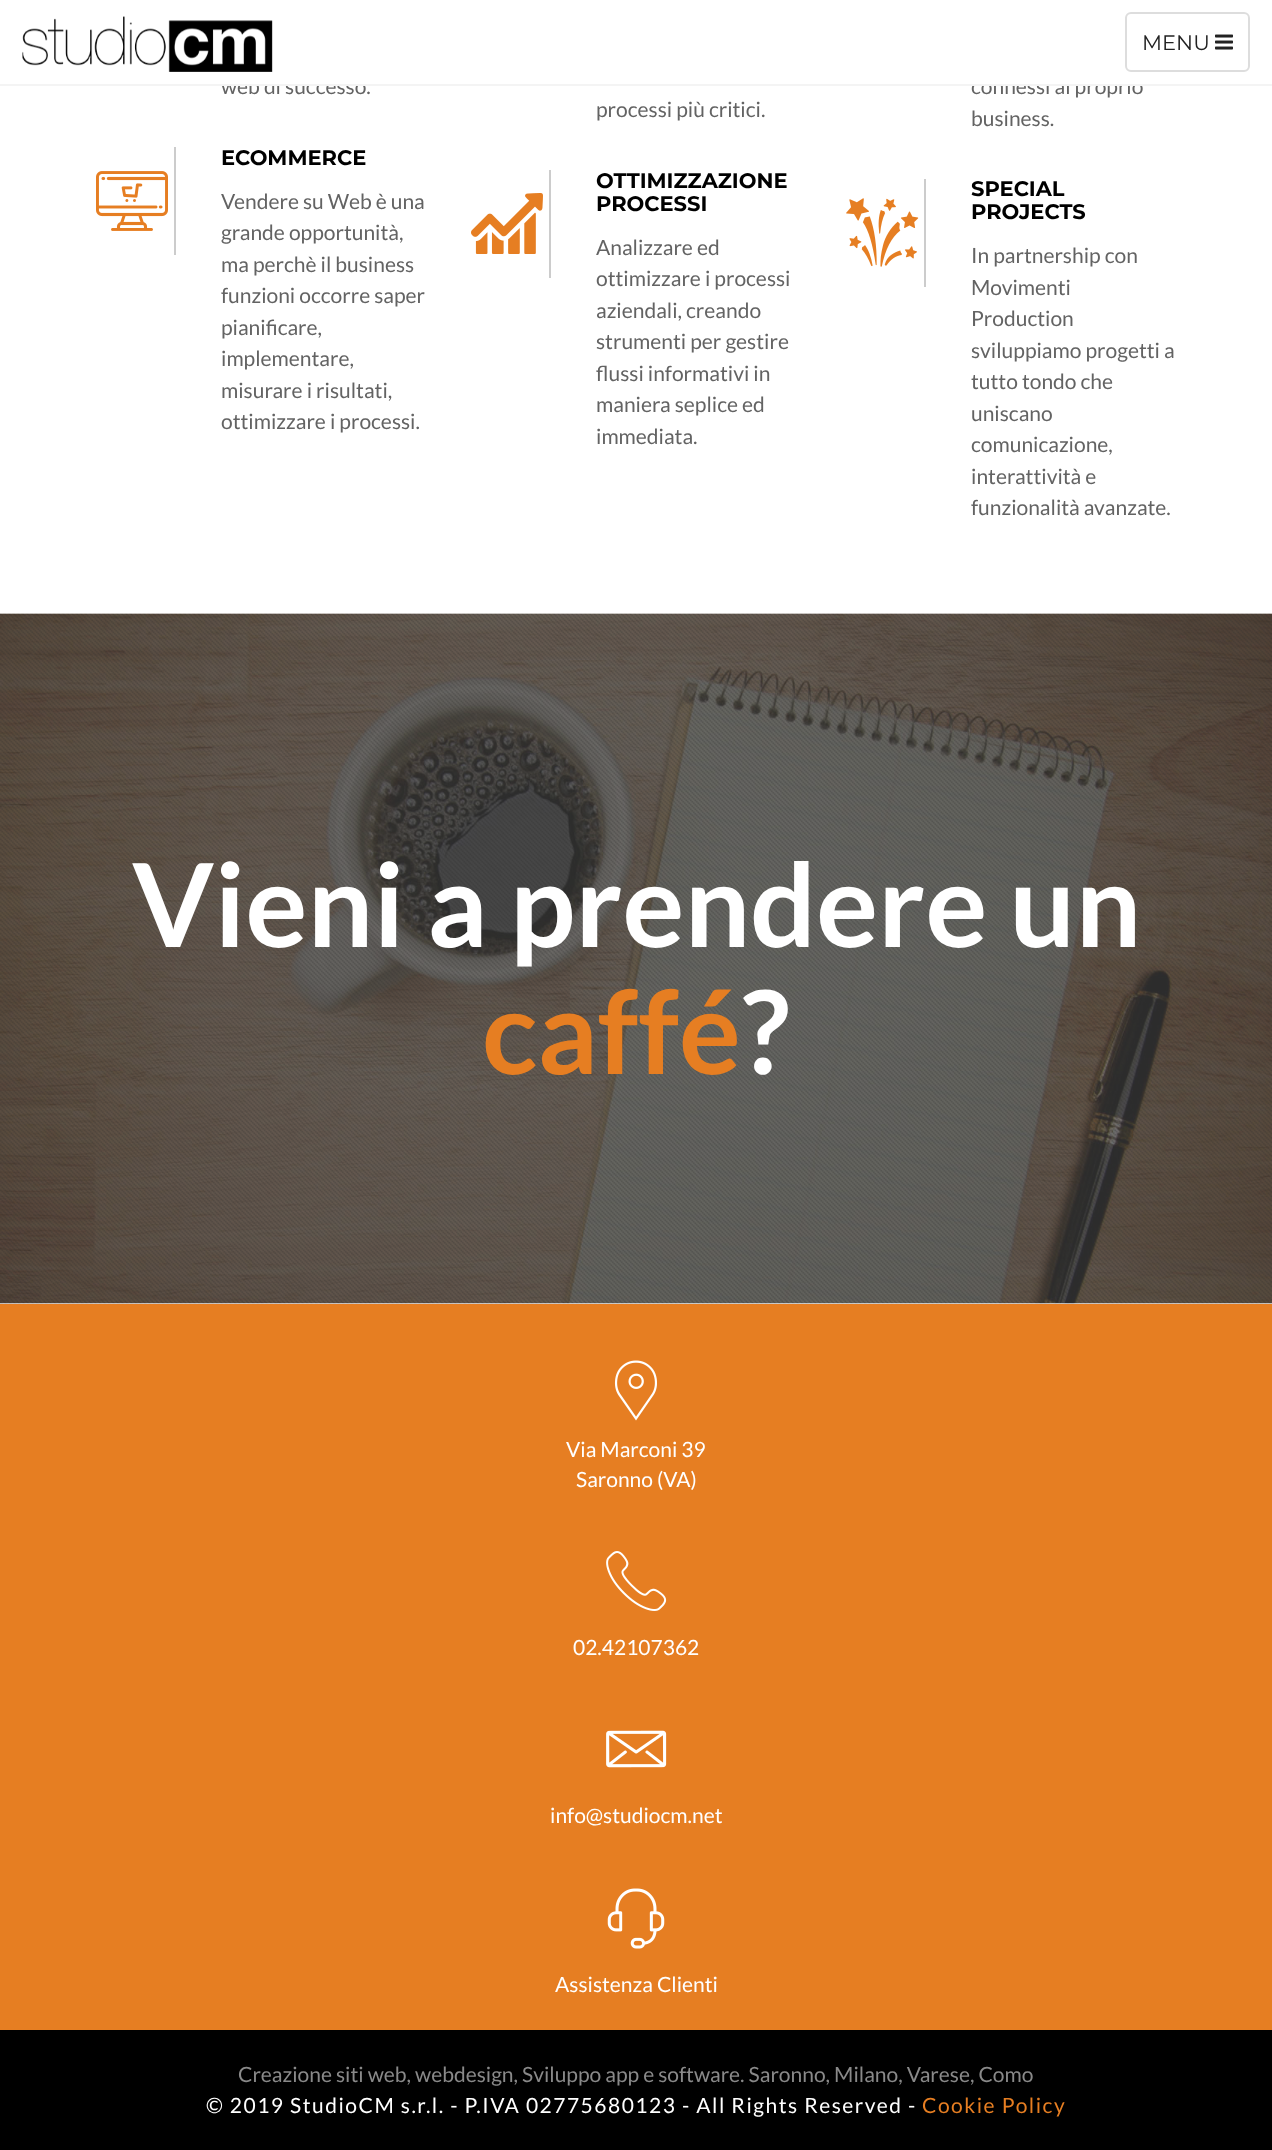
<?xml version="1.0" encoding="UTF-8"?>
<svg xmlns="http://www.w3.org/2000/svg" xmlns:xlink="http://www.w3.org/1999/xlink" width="1272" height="2150">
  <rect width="100%" height="100%" fill="#ffffff" />
  <image x="22" y="16" width="251" height="56" xlink:href="image1.png" />
  <rect x="1126" y="13" width="123" height="58" rx="5" fill="none" stroke="#dddddd" stroke-width="2" />
  <image x="1215" y="34" width="18" height="16" xlink:href="image2.png" />
  <rect x="174" y="147" width="2" height="108" fill="#cccccc" />
  <image x="96" y="171" width="72" height="60" xlink:href="image3.png" />
  <rect x="549" y="170" width="2" height="108" fill="#cccccc" />
  <image x="471" y="193" width="72" height="61" xlink:href="image4.png" />
  <rect x="924" y="179" width="2" height="108" fill="#cccccc" />
  <image x="846" y="198" width="73" height="69" xlink:href="image5.png" />
  <image x="0" y="613" width="1272" height="691" xlink:href="image6.png" />
  <image x="0" y="613" width="1272" height="691" xlink:href="image7.png" />
  <rect y="1304" width="1272" height="726" fill="#e67e22" />
  <image x="614" y="1360" width="43" height="61" xlink:href="image8.png" />
  <image x="606" y="1551" width="61" height="60" xlink:href="image9.png" />
  <image x="606" y="1730" width="61" height="38" xlink:href="image10.png" />
  <image x="607" y="1888" width="58" height="61" xlink:href="image11.png" />
  <rect y="2030" width="1272" height="120" fill="#000000" />
  <text x="1142" y="50" style="font-family: Montserrat; font-size: 21px; fill: #222222">MENU</text>
  <text x="221" y="94" style="font-family: Lato; font-size: 21px; fill: #636363">web di successo.</text>
  <text x="221" y="165" style="font-family: Montserrat; font-size: 21px; font-weight: bold; fill: #000000">ECOMMERCE</text>
  <text x="221" y="209" style="font-family: Lato; font-size: 21px; fill: #636363">Vendere su Web è una</text>
  <text x="221" y="240" style="font-family: Lato; font-size: 21px; fill: #636363">grande opportunità,</text>
  <text x="221" y="272" style="font-family: Lato; font-size: 21px; fill: #636363">ma perchè il business</text>
  <text x="221" y="303" style="font-family: Lato; font-size: 21px; fill: #636363">funzioni occorre saper</text>
  <text x="221" y="335" style="font-family: Lato; font-size: 21px; fill: #636363">pianificare,</text>
  <text x="221" y="366" style="font-family: Lato; font-size: 21px; fill: #636363">implementare,</text>
  <text x="221" y="398" style="font-family: Lato; font-size: 21px; fill: #636363">misurare i risultati,</text>
  <text x="221" y="429" style="font-family: Lato; font-size: 21px; fill: #636363">ottimizzare i processi.</text>
  <text x="596" y="117" style="font-family: Lato; font-size: 21px; fill: #636363">processi più critici.</text>
  <text x="596" y="188" style="font-family: Montserrat; font-size: 21px; font-weight: bold; fill: #000000">OTTIMIZZAZIONE</text>
  <text x="596" y="211" style="font-family: Montserrat; font-size: 21px; font-weight: bold; fill: #000000">PROCESSI</text>
  <text x="596" y="255" style="font-family: Lato; font-size: 21px; fill: #636363">Analizzare ed</text>
  <text x="596" y="286" style="font-family: Lato; font-size: 21px; fill: #636363">ottimizzare i processi</text>
  <text x="596" y="318" style="font-family: Lato; font-size: 21px; fill: #636363">aziendali, creando</text>
  <text x="596" y="349" style="font-family: Lato; font-size: 21px; fill: #636363">strumenti per gestire</text>
  <text x="596" y="381" style="font-family: Lato; font-size: 21px; fill: #636363">flussi informativi in</text>
  <text x="596" y="412" style="font-family: Lato; font-size: 21px; fill: #636363">maniera seplice ed</text>
  <text x="596" y="444" style="font-family: Lato; font-size: 21px; fill: #636363">immediata.</text>
  <text x="971" y="94" style="font-family: Lato; font-size: 21px; fill: #636363">connessi al proprio</text>
  <rect y="84" width="1272" height="2" fill="#f4f4f4" />
  <rect x="221" y="78" width="920" height="6" fill="#ffffff" />
  <text x="971" y="126" style="font-family: Lato; font-size: 21px; fill: #636363">business.</text>
  <text x="971" y="196" style="font-family: Montserrat; font-size: 21px; font-weight: bold; fill: #000000">SPECIAL</text>
  <text x="971" y="219" style="font-family: Montserrat; font-size: 21px; font-weight: bold; fill: #000000">PROJECTS</text>
  <text x="971" y="263" style="font-family: Lato; font-size: 21px; fill: #636363">In partnership con</text>
  <text x="971" y="295" style="font-family: Lato; font-size: 21px; fill: #636363">Movimenti</text>
  <text x="971" y="326" style="font-family: Lato; font-size: 21px; fill: #636363">Production</text>
  <text x="971" y="358" style="font-family: Lato; font-size: 21px; fill: #636363">sviluppiamo progetti a</text>
  <text x="971" y="389" style="font-family: Lato; font-size: 21px; fill: #636363">tutto tondo che</text>
  <text x="971" y="421" style="font-family: Lato; font-size: 21px; fill: #636363">uniscano</text>
  <text x="971" y="452" style="font-family: Lato; font-size: 21px; fill: #636363">comunicazione,</text>
  <text x="971" y="484" style="font-family: Lato; font-size: 21px; fill: #636363">interattività e</text>
  <text x="971" y="515" style="font-family: Lato; font-size: 21px; fill: #636363">funzionalità avanzate.</text>
  <text x="132" y="947" style="font-family: Lato; font-size: 115.75px; font-weight: bold; fill: #ffffff">Vieni a prendere un</text>
  <text x="482" y="1074" style="font-family: Lato; font-size: 115.75px; font-weight: bold; fill: #e67e22">caffé</text>
  <text x="741" y="1074" style="font-family: Lato; font-size: 115.75px; font-weight: bold; fill: #ffffff">?</text>
  <text x="566" y="1457" style="font-family: Lato; font-size: 21px; fill: #ffffff">Via Marconi 39</text>
  <text x="576" y="1487" style="font-family: Lato; font-size: 21px; fill: #ffffff">Saronno (VA)</text>
  <text x="573" y="1655" style="font-family: Lato; font-size: 21px; fill: #ffffff">02.42107362</text>
  <text x="550" y="1823" style="font-family: Lato; font-size: 21px; fill: #ffffff">info@studiocm.net</text>
  <text x="555" y="1992" style="font-family: Lato; font-size: 21px; fill: #ffffff">Assistenza Clienti</text>
  <text x="238" y="2082" style="font-family: Lato; font-size: 21px; fill: #898989">Creazione siti web, webdesign, Sviluppo app e software. Saronno, Milano, Varese, Como</text>
  <text x="206" y="2113" style="font-family: Lato; font-size: 21px; letter-spacing: 1.5px; fill: #ffffff">© 2019 StudioCM s.r.l. - P.IVA 02775680123 - All Rights Reserved -</text>
  <text x="922" y="2113" style="font-family: Lato; font-size: 21px; letter-spacing: 1.5px; fill: #e67e22">Cookie Policy</text>
</svg>
